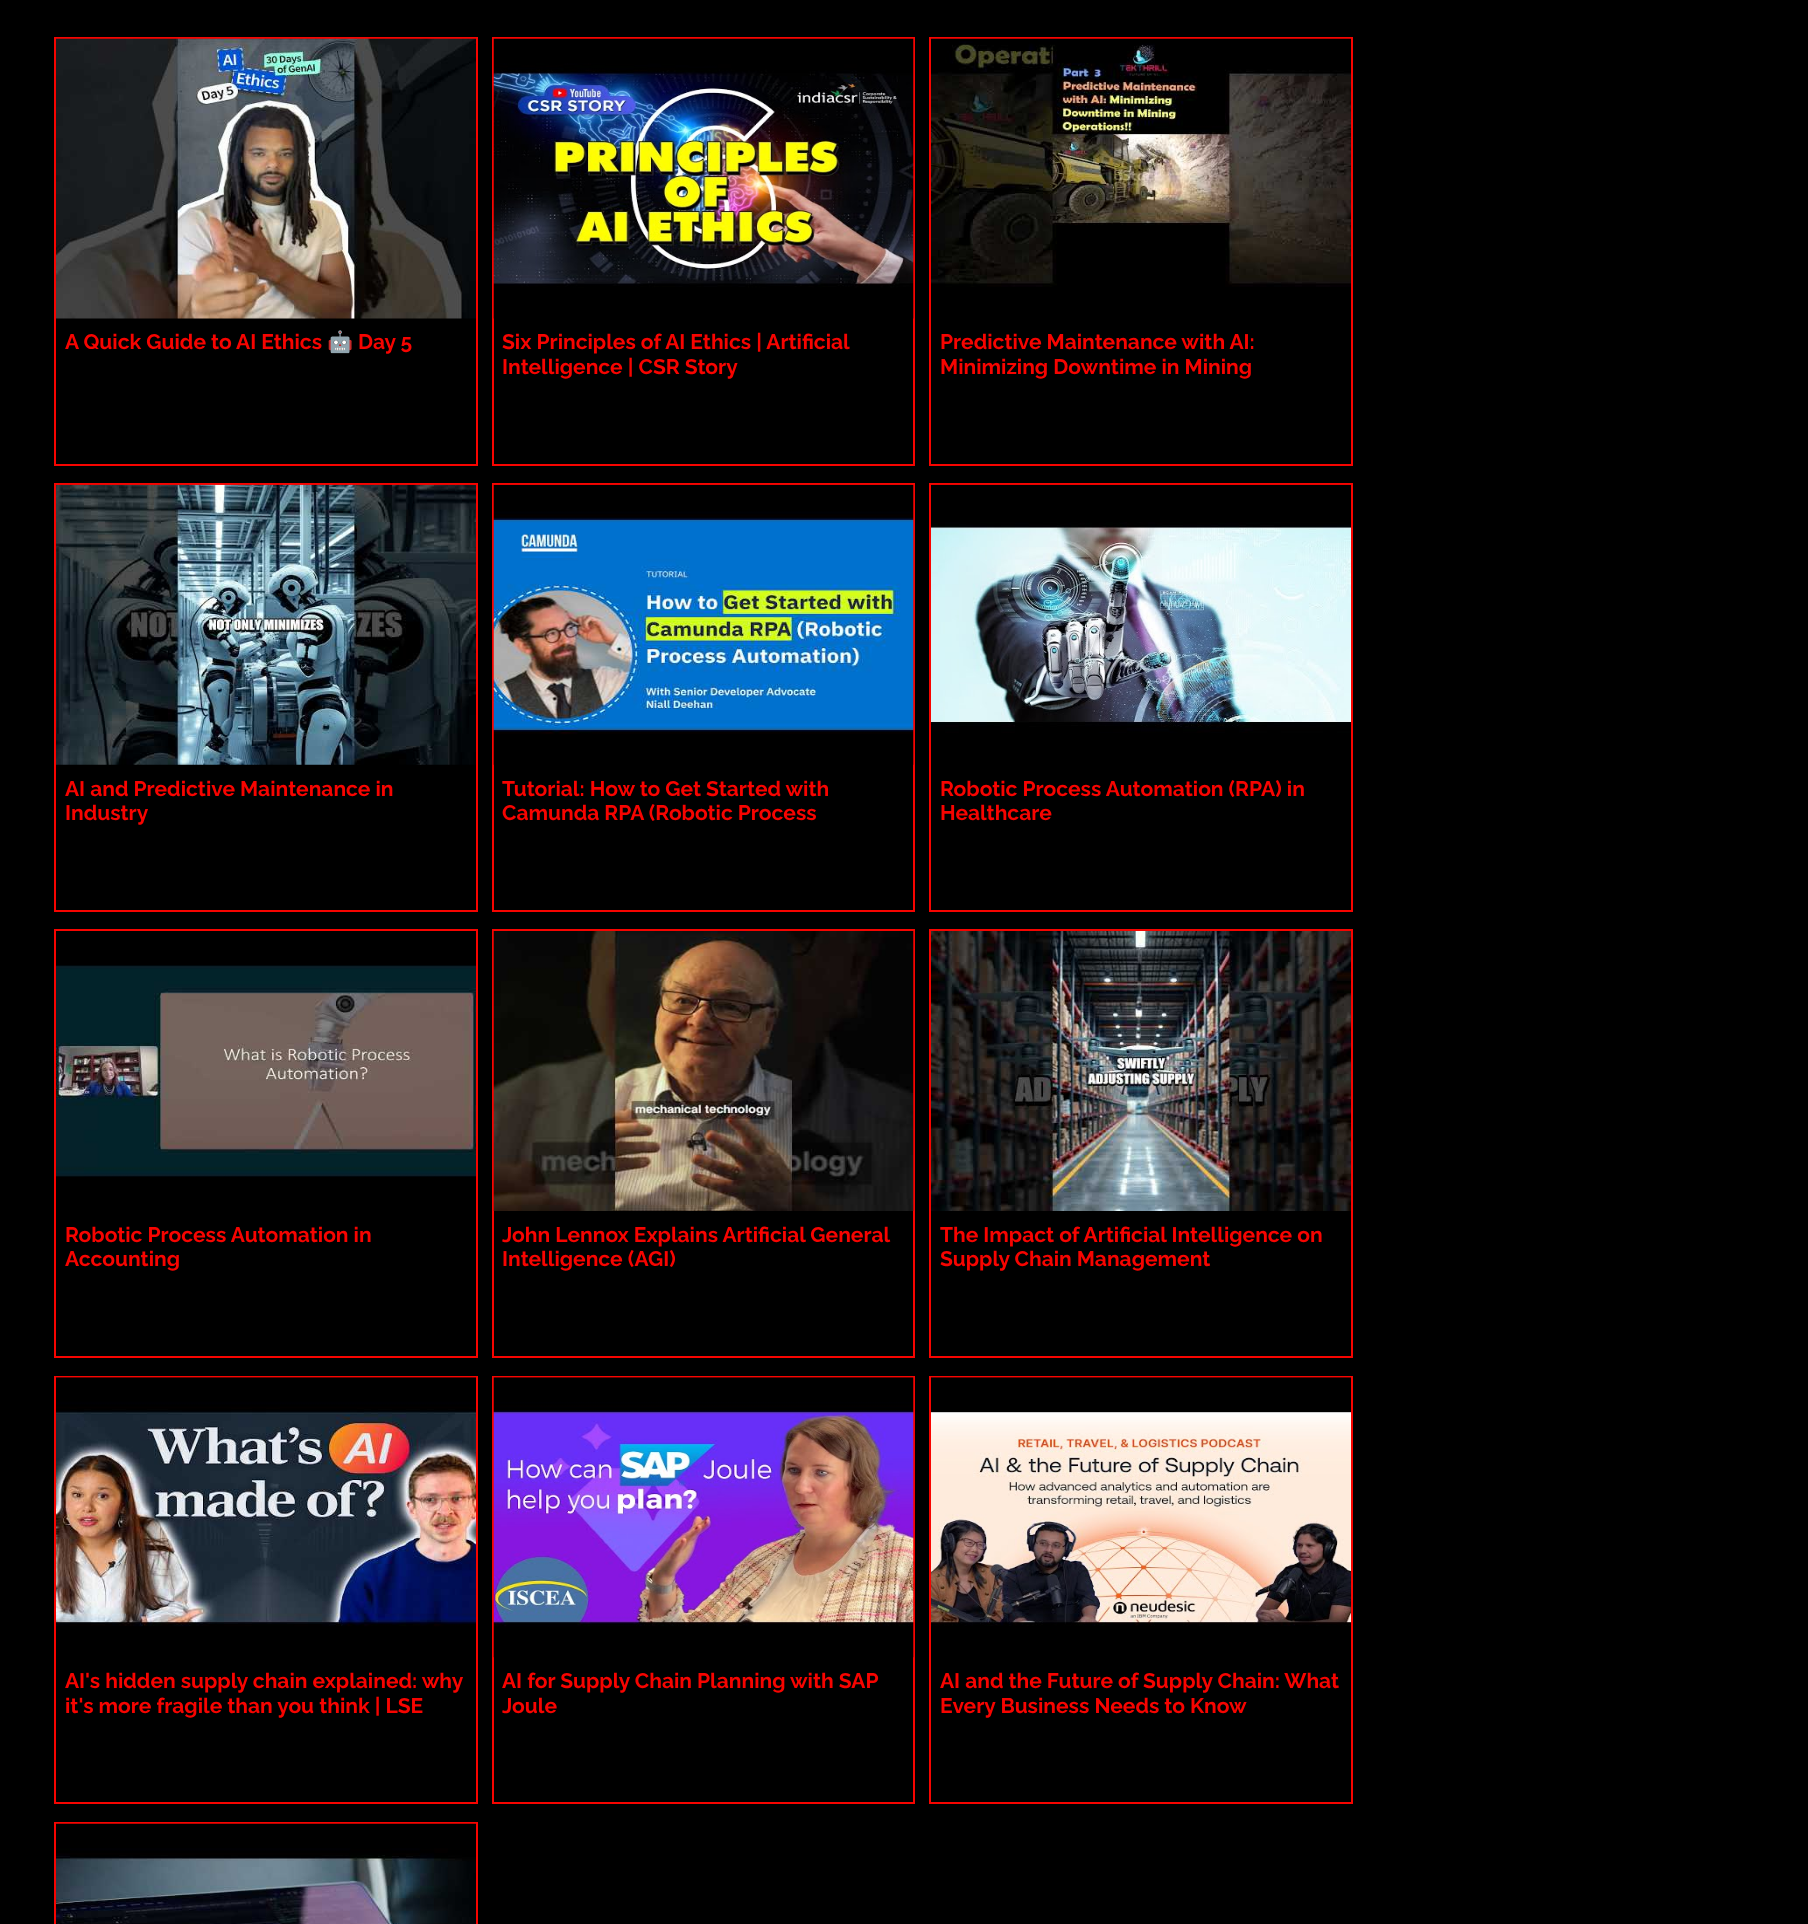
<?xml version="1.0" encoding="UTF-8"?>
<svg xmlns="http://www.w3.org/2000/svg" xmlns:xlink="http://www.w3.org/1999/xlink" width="1808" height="1924">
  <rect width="100%" height="100%" fill="#000000" />
  <rect x="55" y="38" width="422" height="427" fill="none" stroke="#f70400" stroke-width="2" />
  <image x="56" y="38" width="420" height="281" xlink:href="image1.png" />
  <rect x="493" y="38" width="421" height="427" fill="none" stroke="#f70400" stroke-width="2" />
  <image x="493" y="38" width="421" height="281" xlink:href="image2.png" />
  <rect x="930" y="38" width="422" height="427" fill="none" stroke="#f70400" stroke-width="2" />
  <image x="931" y="38" width="420" height="249" xlink:href="image3.png" />
  <rect x="55" y="484" width="422" height="427" fill="none" stroke="#f70400" stroke-width="2" />
  <image x="56" y="484" width="420" height="281" xlink:href="image4.png" />
  <rect x="493" y="484" width="421" height="427" fill="none" stroke="#f70400" stroke-width="2" />
  <image x="493" y="484" width="421" height="281" xlink:href="image5.png" />
  <rect x="930" y="484" width="422" height="427" fill="none" stroke="#f70400" stroke-width="2" />
  <image x="931" y="484" width="420" height="249" xlink:href="image6.png" />
  <rect x="55" y="930" width="422" height="427" fill="none" stroke="#f70400" stroke-width="2" />
  <image x="56" y="965" width="420" height="212" xlink:href="image7.png" />
  <rect x="493" y="930" width="421" height="427" fill="none" stroke="#f70400" stroke-width="2" />
  <image x="493" y="931" width="421" height="280" xlink:href="image8.png" />
  <rect x="930" y="930" width="422" height="427" fill="none" stroke="#f70400" stroke-width="2" />
  <image x="931" y="931" width="420" height="280" xlink:href="image9.png" />
  <rect x="55" y="1377" width="422" height="426" fill="none" stroke="#f70400" stroke-width="2" />
  <image x="56" y="1377" width="420" height="250" xlink:href="image10.png" />
  <rect x="493" y="1377" width="421" height="426" fill="none" stroke="#f70400" stroke-width="2" />
  <image x="493" y="1377" width="421" height="281" xlink:href="image11.png" />
  <rect x="930" y="1377" width="422" height="426" fill="none" stroke="#f70400" stroke-width="2" />
  <image x="931" y="1377" width="420" height="249" xlink:href="image12.png" />
  <rect x="55" y="1823" width="422" height="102" fill="none" stroke="#f70400" stroke-width="2" />
  <image x="56" y="1823" width="420" height="101" xlink:href="image13.png" />
  <text x="65" y="349" style="font-family: Raleway; font-size: 21px; font-weight: bold; fill: #f70400">A Quick Guide to AI Ethics</text>
  <text x="327" y="349" style="font-family: Noto Color Emoji; font-size: 21px; font-weight: bold; fill: #f70400">🤖</text>
  <text x="358" y="349" style="font-family: Raleway; font-size: 21px; font-weight: bold; fill: #f70400">Day 5</text>
  <text x="502" y="349" style="font-family: Raleway; font-size: 21px; font-weight: bold; fill: #f70400">Six Principles of AI Ethics | Artificial</text>
  <text x="502" y="374" style="font-family: Raleway; font-size: 21px; font-weight: bold; fill: #f70400">Intelligence | CSR Story</text>
  <text x="940" y="349" style="font-family: Raleway; font-size: 21px; font-weight: bold; fill: #f70400">Predictive Maintenance with AI:</text>
  <text x="940" y="374" style="font-family: Raleway; font-size: 21px; font-weight: bold; fill: #f70400">Minimizing Downtime in Mining</text>
  <text x="65" y="796" style="font-family: Raleway; font-size: 21px; font-weight: bold; fill: #f70400">AI and Predictive Maintenance in</text>
  <text x="65" y="820" style="font-family: Raleway; font-size: 21px; font-weight: bold; fill: #f70400">Industry</text>
  <text x="502" y="796" style="font-family: Raleway; font-size: 21px; font-weight: bold; fill: #f70400">Tutorial: How to Get Started with</text>
  <text x="502" y="820" style="font-family: Raleway; font-size: 21px; font-weight: bold; fill: #f70400">Camunda RPA (Robotic Process</text>
  <text x="940" y="796" style="font-family: Raleway; font-size: 21px; font-weight: bold; fill: #f70400">Robotic Process Automation (RPA) in</text>
  <text x="940" y="820" style="font-family: Raleway; font-size: 21px; font-weight: bold; fill: #f70400">Healthcare</text>
  <text x="65" y="1242" style="font-family: Raleway; font-size: 21px; font-weight: bold; fill: #f70400">Robotic Process Automation in</text>
  <text x="65" y="1266" style="font-family: Raleway; font-size: 21px; font-weight: bold; fill: #f70400">Accounting</text>
  <text x="502" y="1242" style="font-family: Raleway; font-size: 21px; font-weight: bold; fill: #f70400">John Lennox Explains Artificial General</text>
  <text x="502" y="1266" style="font-family: Raleway; font-size: 21px; font-weight: bold; fill: #f70400">Intelligence (AGI)</text>
  <text x="940" y="1242" style="font-family: Raleway; font-size: 21px; font-weight: bold; fill: #f70400">The Impact of Artificial Intelligence on</text>
  <text x="940" y="1266" style="font-family: Raleway; font-size: 21px; font-weight: bold; fill: #f70400">Supply Chain Management</text>
  <text x="65" y="1688" style="font-family: Raleway; font-size: 21px; font-weight: bold; fill: #f70400">AI's hidden supply chain explained: why</text>
  <text x="65" y="1713" style="font-family: Raleway; font-size: 21px; font-weight: bold; fill: #f70400">it's more fragile than you think | LSE</text>
  <text x="502" y="1688" style="font-family: Raleway; font-size: 21px; font-weight: bold; fill: #f70400">AI for Supply Chain Planning with SAP</text>
  <text x="502" y="1713" style="font-family: Raleway; font-size: 21px; font-weight: bold; fill: #f70400">Joule</text>
  <text x="940" y="1688" style="font-family: Raleway; font-size: 21px; font-weight: bold; fill: #f70400">AI and the Future of Supply Chain: What</text>
  <text x="940" y="1713" style="font-family: Raleway; font-size: 21px; font-weight: bold; fill: #f70400">Every Business Needs to Know</text>
</svg>
